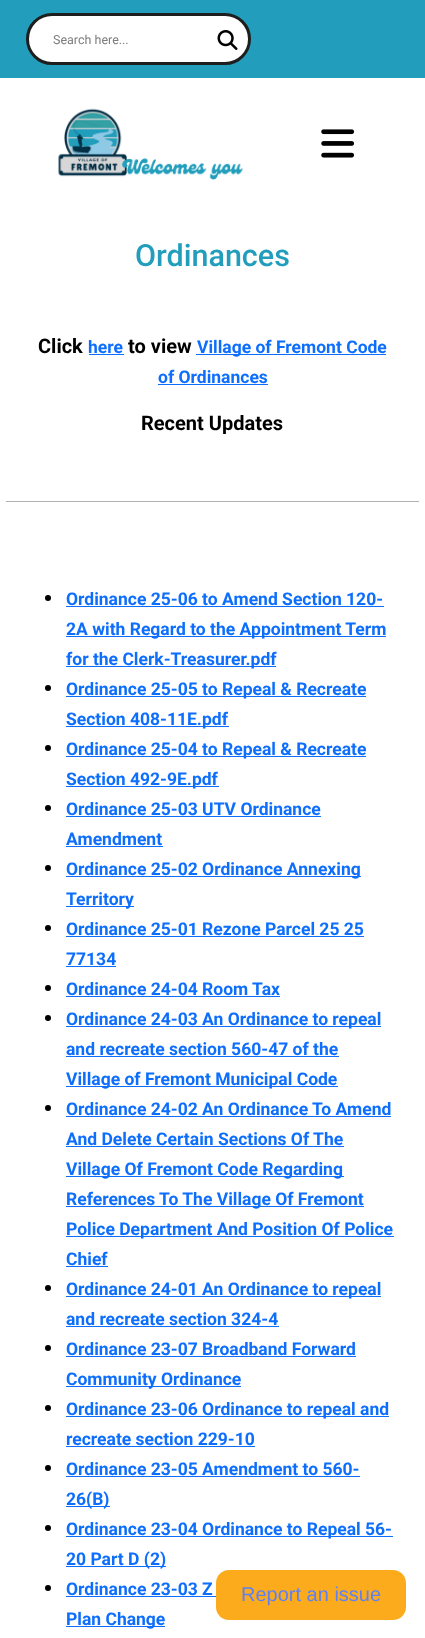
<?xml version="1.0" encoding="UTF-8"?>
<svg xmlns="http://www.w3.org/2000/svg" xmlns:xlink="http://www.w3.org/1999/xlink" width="425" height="1638">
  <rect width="100%" height="100%" fill="#ffffff" />
  <rect width="425" height="78" fill="#229ebc" />
  <rect x="27.5" y="14.5" width="222" height="49" rx="24.5" fill="#ffffff" stroke="#1e1e1e" stroke-width="3" />
  <image x="217" y="30" width="21" height="20" xlink:href="image1.png" />
  <image x="58" y="108" width="186" height="72" xlink:href="image2.png" />
  <image x="321" y="129" width="34" height="29" xlink:href="image3.png" />
  <rect x="89" y="354" width="35" height="1" fill="#0d6efd" />
  <rect x="196" y="354" width="190" height="1" fill="#0d6efd" />
  <rect x="158" y="384" width="110" height="1" fill="#0d6efd" />
  <rect x="6" y="501" width="413" height="1" fill="#b5b0b0" />
  <circle cx="48" cy="598" r="3" fill="#000000" />
  <rect x="66" y="606" width="318" height="1" fill="#0d6efd" />
  <rect x="66" y="636" width="320" height="1" fill="#0d6efd" />
  <rect x="66" y="666" width="210" height="1" fill="#0d6efd" />
  <circle cx="48" cy="688" r="3" fill="#000000" />
  <rect x="66" y="696" width="300" height="1" fill="#0d6efd" />
  <rect x="66" y="726" width="163" height="1" fill="#0d6efd" />
  <circle cx="48" cy="748" r="3" fill="#000000" />
  <rect x="66" y="756" width="300" height="1" fill="#0d6efd" />
  <rect x="66" y="786" width="153" height="1" fill="#0d6efd" />
  <circle cx="48" cy="808" r="3" fill="#000000" />
  <rect x="66" y="816" width="255" height="1" fill="#0d6efd" />
  <rect x="66" y="846" width="97" height="1" fill="#0d6efd" />
  <circle cx="48" cy="868" r="3" fill="#000000" />
  <rect x="66" y="876" width="295" height="1" fill="#0d6efd" />
  <rect x="66" y="906" width="68" height="1" fill="#0d6efd" />
  <circle cx="48" cy="928" r="3" fill="#000000" />
  <rect x="66" y="936" width="298" height="1" fill="#0d6efd" />
  <rect x="66" y="966" width="50" height="1" fill="#0d6efd" />
  <circle cx="48" cy="988" r="3" fill="#000000" />
  <rect x="66" y="996" width="214" height="1" fill="#0d6efd" />
  <circle cx="48" cy="1018" r="3" fill="#000000" />
  <rect x="66" y="1026" width="315" height="1" fill="#0d6efd" />
  <rect x="66" y="1056" width="273" height="1" fill="#0d6efd" />
  <rect x="66" y="1086" width="272" height="1" fill="#0d6efd" />
  <circle cx="48" cy="1108" r="3" fill="#000000" />
  <rect x="66" y="1116" width="325" height="1" fill="#0d6efd" />
  <rect x="66" y="1146" width="278" height="1" fill="#0d6efd" />
  <rect x="66" y="1176" width="278" height="1" fill="#0d6efd" />
  <rect x="66" y="1206" width="298" height="1" fill="#0d6efd" />
  <rect x="66" y="1236" width="328" height="1" fill="#0d6efd" />
  <rect x="66" y="1266" width="42" height="1" fill="#0d6efd" />
  <circle cx="48" cy="1288" r="3" fill="#000000" />
  <rect x="66" y="1296" width="315" height="1" fill="#0d6efd" />
  <rect x="66" y="1326" width="213" height="1" fill="#0d6efd" />
  <circle cx="48" cy="1348" r="3" fill="#000000" />
  <rect x="66" y="1356" width="290" height="1" fill="#0d6efd" />
  <rect x="66" y="1386" width="175" height="1" fill="#0d6efd" />
  <circle cx="48" cy="1408" r="3" fill="#000000" />
  <rect x="66" y="1416" width="323" height="1" fill="#0d6efd" />
  <rect x="66" y="1446" width="189" height="1" fill="#0d6efd" />
  <circle cx="48" cy="1468" r="3" fill="#000000" />
  <rect x="66" y="1476" width="294" height="1" fill="#0d6efd" />
  <rect x="66" y="1506" width="44" height="1" fill="#0d6efd" />
  <circle cx="48" cy="1528" r="3" fill="#000000" />
  <rect x="66" y="1536" width="327" height="1" fill="#0d6efd" />
  <rect x="66" y="1566" width="100" height="1" fill="#0d6efd" />
  <circle cx="48" cy="1588" r="3" fill="#000000" />
  <rect x="66" y="1596" width="150" height="1" fill="#0d6efd" />
  <rect x="66" y="1626" width="99" height="1" fill="#0d6efd" />
  <rect x="216" y="1570" width="190" height="50" rx="13" fill="#fcab1c" />
  <text x="53" y="44" style="font-family: Roboto; font-size: 12.5px; fill: #7d7d7d">Search here...</text>
  <text x="135" y="266" style="font-family: Roboto; font-size: 30.5px; font-weight: 500; fill: #229ebc">Ordinances</text>
  <text x="38" y="353" style="font-family: Roboto; font-size: 20px; font-weight: bold; fill: #000000">Click</text>
  <text x="88" y="353" style="font-family: Roboto; font-size: 17.5px; font-weight: bold; fill: #0d6efd">here</text>
  <text x="128" y="353" style="font-family: Roboto; font-size: 20px; font-weight: bold; fill: #000000">to view</text>
  <text x="197" y="353" style="font-family: Roboto; font-size: 17.5px; font-weight: bold; fill: #0d6efd">Village of Fremont Code</text>
  <text x="158" y="383" style="font-family: Roboto; font-size: 17.5px; font-weight: bold; fill: #0d6efd">of Ordinances</text>
  <text x="141" y="430" style="font-family: Roboto; font-size: 20px; font-weight: bold; fill: #000000">Recent Updates</text>
  <text x="66" y="605" style="font-family: Roboto; font-size: 17.5px; font-weight: bold; fill: #0d6efd">Ordinance 25-06 to Amend Section 120-</text>
  <text x="66" y="635" style="font-family: Roboto; font-size: 17.5px; font-weight: bold; fill: #0d6efd">2A with Regard to the Appointment Term</text>
  <text x="66" y="665" style="font-family: Roboto; font-size: 17.5px; font-weight: bold; fill: #0d6efd">for the Clerk-Treasurer.pdf</text>
  <text x="66" y="695" style="font-family: Roboto; font-size: 17.5px; font-weight: bold; fill: #0d6efd">Ordinance 25-05 to Repeal &amp; Recreate</text>
  <text x="66" y="725" style="font-family: Roboto; font-size: 17.5px; font-weight: bold; fill: #0d6efd">Section 408-11E.pdf</text>
  <text x="66" y="755" style="font-family: Roboto; font-size: 17.5px; font-weight: bold; fill: #0d6efd">Ordinance 25-04 to Repeal &amp; Recreate</text>
  <text x="66" y="785" style="font-family: Roboto; font-size: 17.5px; font-weight: bold; fill: #0d6efd">Section 492-9E.pdf</text>
  <text x="66" y="815" style="font-family: Roboto; font-size: 17.5px; font-weight: bold; fill: #0d6efd">Ordinance 25-03 UTV Ordinance</text>
  <text x="66" y="845" style="font-family: Roboto; font-size: 17.5px; font-weight: bold; fill: #0d6efd">Amendment</text>
  <text x="66" y="875" style="font-family: Roboto; font-size: 17.5px; font-weight: bold; fill: #0d6efd">Ordinance 25-02 Ordinance Annexing</text>
  <text x="66" y="905" style="font-family: Roboto; font-size: 17.5px; font-weight: bold; fill: #0d6efd">Territory</text>
  <text x="66" y="935" style="font-family: Roboto; font-size: 17.5px; font-weight: bold; fill: #0d6efd">Ordinance 25-01 Rezone Parcel 25 25</text>
  <text x="66" y="965" style="font-family: Roboto; font-size: 17.5px; font-weight: bold; fill: #0d6efd">77134</text>
  <text x="66" y="995" style="font-family: Roboto; font-size: 17.5px; font-weight: bold; fill: #0d6efd">Ordinance 24-04 Room Tax</text>
  <text x="66" y="1025" style="font-family: Roboto; font-size: 17.5px; font-weight: bold; fill: #0d6efd">Ordinance 24-03 An Ordinance to repeal</text>
  <text x="66" y="1055" style="font-family: Roboto; font-size: 17.5px; font-weight: bold; fill: #0d6efd">and recreate section 560-47 of the</text>
  <text x="66" y="1085" style="font-family: Roboto; font-size: 17.5px; font-weight: bold; fill: #0d6efd">Village of Fremont Municipal Code</text>
  <text x="66" y="1115" style="font-family: Roboto; font-size: 17.5px; font-weight: bold; fill: #0d6efd">Ordinance 24-02 An Ordinance To Amend</text>
  <text x="66" y="1145" style="font-family: Roboto; font-size: 17.5px; font-weight: bold; fill: #0d6efd">And Delete Certain Sections Of The</text>
  <text x="66" y="1175" style="font-family: Roboto; font-size: 17.5px; font-weight: bold; fill: #0d6efd">Village Of Fremont Code Regarding</text>
  <text x="66" y="1205" style="font-family: Roboto; font-size: 17.5px; font-weight: bold; fill: #0d6efd">References To The Village Of Fremont</text>
  <text x="66" y="1235" style="font-family: Roboto; font-size: 17.5px; font-weight: bold; fill: #0d6efd">Police Department And Position Of Police</text>
  <text x="66" y="1265" style="font-family: Roboto; font-size: 17.5px; font-weight: bold; fill: #0d6efd">Chief</text>
  <text x="66" y="1295" style="font-family: Roboto; font-size: 17.5px; font-weight: bold; fill: #0d6efd">Ordinance 24-01 An Ordinance to repeal</text>
  <text x="66" y="1325" style="font-family: Roboto; font-size: 17.5px; font-weight: bold; fill: #0d6efd">and recreate section 324-4</text>
  <text x="66" y="1355" style="font-family: Roboto; font-size: 17.5px; font-weight: bold; fill: #0d6efd">Ordinance 23-07 Broadband Forward</text>
  <text x="66" y="1385" style="font-family: Roboto; font-size: 17.5px; font-weight: bold; fill: #0d6efd">Community Ordinance</text>
  <text x="66" y="1415" style="font-family: Roboto; font-size: 17.5px; font-weight: bold; fill: #0d6efd">Ordinance 23-06 Ordinance to repeal and</text>
  <text x="66" y="1445" style="font-family: Roboto; font-size: 17.5px; font-weight: bold; fill: #0d6efd">recreate section 229-10</text>
  <text x="66" y="1475" style="font-family: Roboto; font-size: 17.5px; font-weight: bold; fill: #0d6efd">Ordinance 23-05 Amendment to 560-</text>
  <text x="66" y="1505" style="font-family: Roboto; font-size: 17.5px; font-weight: bold; fill: #0d6efd">26(B)</text>
  <text x="66" y="1535" style="font-family: Roboto; font-size: 17.5px; font-weight: bold; fill: #0d6efd">Ordinance 23-04 Ordinance to Repeal 56-</text>
  <text x="66" y="1565" style="font-family: Roboto; font-size: 17.5px; font-weight: bold; fill: #0d6efd">20 Part D (2)</text>
  <text x="66" y="1595" style="font-family: Roboto; font-size: 17.5px; font-weight: bold; fill: #0d6efd">Ordinance 23-03 Z</text>
  <text x="66" y="1625" style="font-family: Roboto; font-size: 17.5px; font-weight: bold; fill: #0d6efd">Plan Change</text>
  <text x="241" y="1601" style="font-family: Liberation Sans; font-size: 20px; fill: #5e81f4">Report an issue</text>
</svg>
